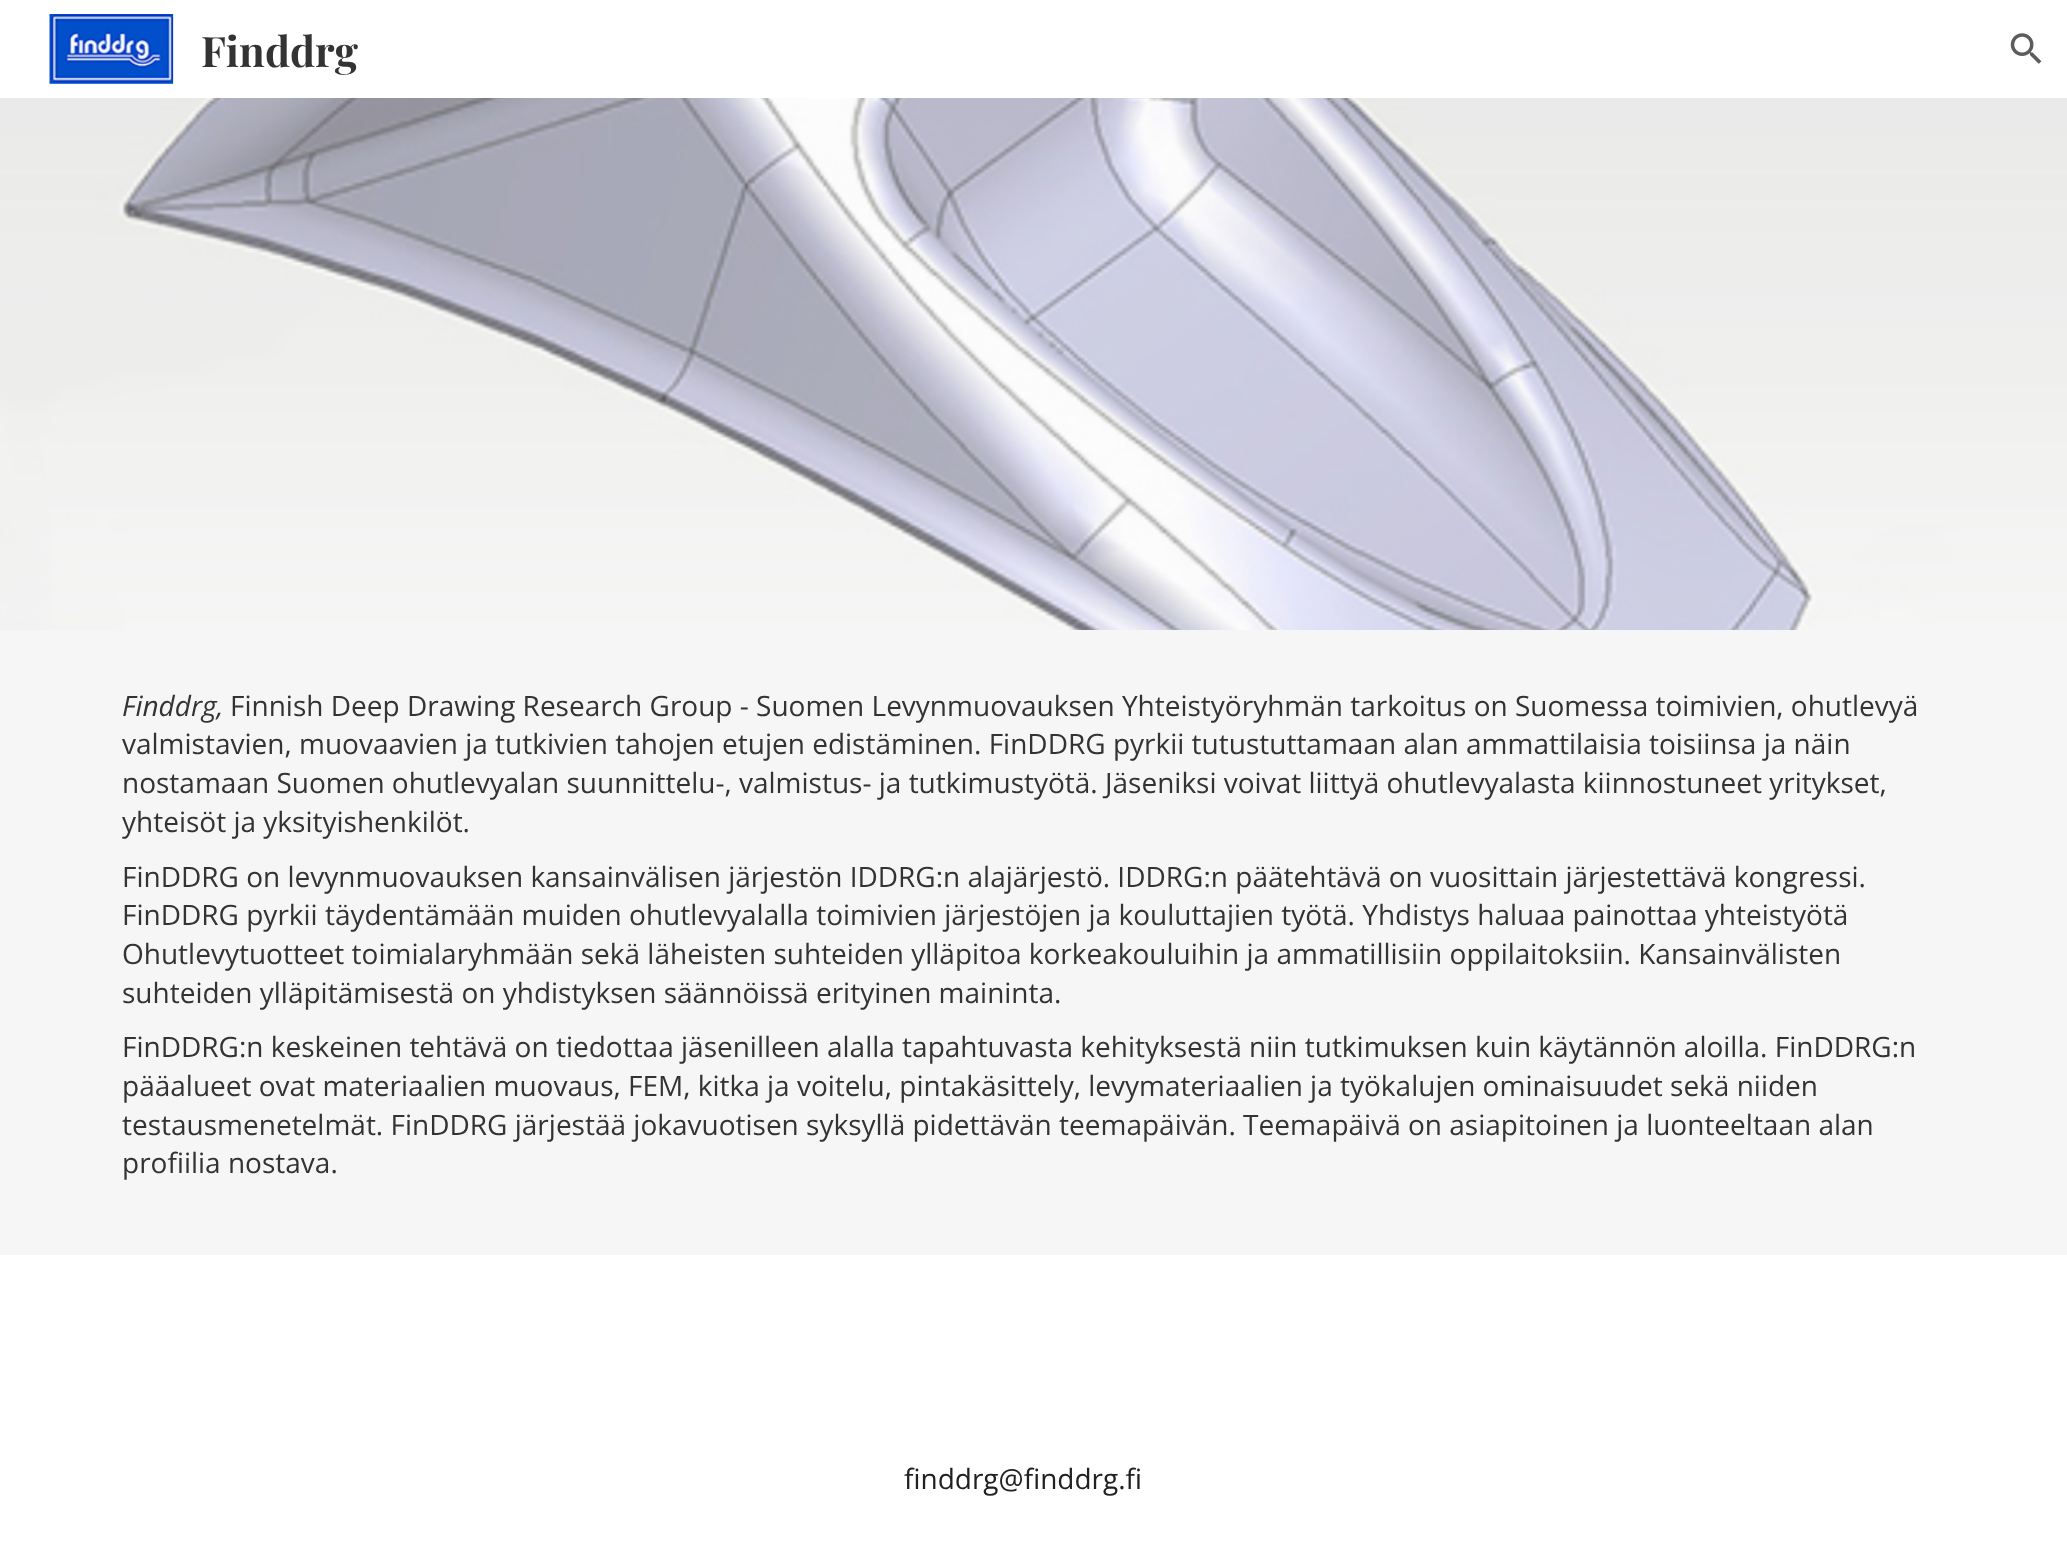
<?xml version="1.0" encoding="UTF-8"?>
<svg xmlns="http://www.w3.org/2000/svg" xmlns:xlink="http://www.w3.org/1999/xlink" width="2067" height="1558">
  <rect width="100%" height="100%" fill="#ffffff" />
  <image x="49" y="14" width="125" height="70" xlink:href="image1.png" />
  <image x="2010" y="33" width="32" height="31" xlink:href="image2.png" />
  <image x="0" y="98" width="2067" height="532" xlink:href="image3.png" />
  <rect y="630" width="2067" height="625" fill="#f6f6f6" />
  <text x="201" y="67" style="font-family: Playfair Display; font-size: 42px; font-weight: bold; fill: #333333">Finddrg</text>
  <text x="122" y="716" style="font-family: Open Sans; font-size: 28px; font-style: italic; fill: #333333">Finddrg,</text>
  <text x="230" y="716" style="font-family: Open Sans; font-size: 28px; fill: #333333">Finnish Deep Drawing Research Group - Suomen Levynmuovauksen Yhteistyöryhmän tarkoitus on Suomessa toimivien, ohutlevyä</text>
  <text x="122" y="754" style="font-family: Open Sans; font-size: 28px; fill: #333333">valmistavien, muovaavien ja tutkivien tahojen etujen edistäminen. FinDDRG pyrkii tutustuttamaan alan ammattilaisia toisiinsa ja näin</text>
  <text x="122" y="793" style="font-family: Open Sans; font-size: 28px; fill: #333333">nostamaan Suomen ohutlevyalan suunnittelu-, valmistus- ja tutkimustyötä. Jäseniksi voivat liittyä ohutlevyalasta kiinnostuneet yritykset,</text>
  <text x="122" y="832" style="font-family: Open Sans; font-size: 28px; fill: #333333">yhteisöt ja yksityishenkilöt.</text>
  <text x="122" y="887" style="font-family: Open Sans; font-size: 28px; fill: #333333">FinDDRG on levynmuovauksen kansainvälisen järjestön IDDRG:n alajärjestö. IDDRG:n päätehtävä on vuosittain järjestettävä kongressi.</text>
  <text x="122" y="925" style="font-family: Open Sans; font-size: 28px; fill: #333333">FinDDRG pyrkii täydentämään muiden ohutlevyalalla toimivien järjestöjen ja kouluttajien työtä. Yhdistys haluaa painottaa yhteistyötä</text>
  <text x="122" y="964" style="font-family: Open Sans; font-size: 28px; fill: #333333">Ohutlevytuotteet toimialaryhmään sekä läheisten suhteiden ylläpitoa korkeakouluihin ja ammatillisiin oppilaitoksiin. Kansainvälisten</text>
  <text x="122" y="1003" style="font-family: Open Sans; font-size: 28px; fill: #333333">suhteiden ylläpitämisestä on yhdistyksen säännöissä erityinen maininta.</text>
  <text x="122" y="1057" style="font-family: Open Sans; font-size: 28px; fill: #333333">FinDDRG:n keskeinen tehtävä on tiedottaa jäsenilleen alalla tapahtuvasta kehityksestä niin tutkimuksen kuin käytännön aloilla. FinDDRG:n</text>
  <text x="122" y="1096" style="font-family: Open Sans; font-size: 28px; fill: #333333">pääalueet ovat materiaalien muovaus, FEM, kitka ja voitelu, pintakäsittely, levymateriaalien ja työkalujen ominaisuudet sekä niiden</text>
  <text x="122" y="1135" style="font-family: Open Sans; font-size: 28px; fill: #333333">testausmenetelmät. FinDDRG järjestää jokavuotisen syksyllä pidettävän teemapäivän. Teemapäivä on asiapitoinen ja luonteeltaan alan</text>
  <text x="122" y="1173" style="font-family: Open Sans; font-size: 28px; fill: #333333">profiilia nostava.</text>
  <text x="904" y="1489" style="font-family: Open Sans; font-size: 28px; fill: #212121">finddrg@finddrg.fi</text>
</svg>
